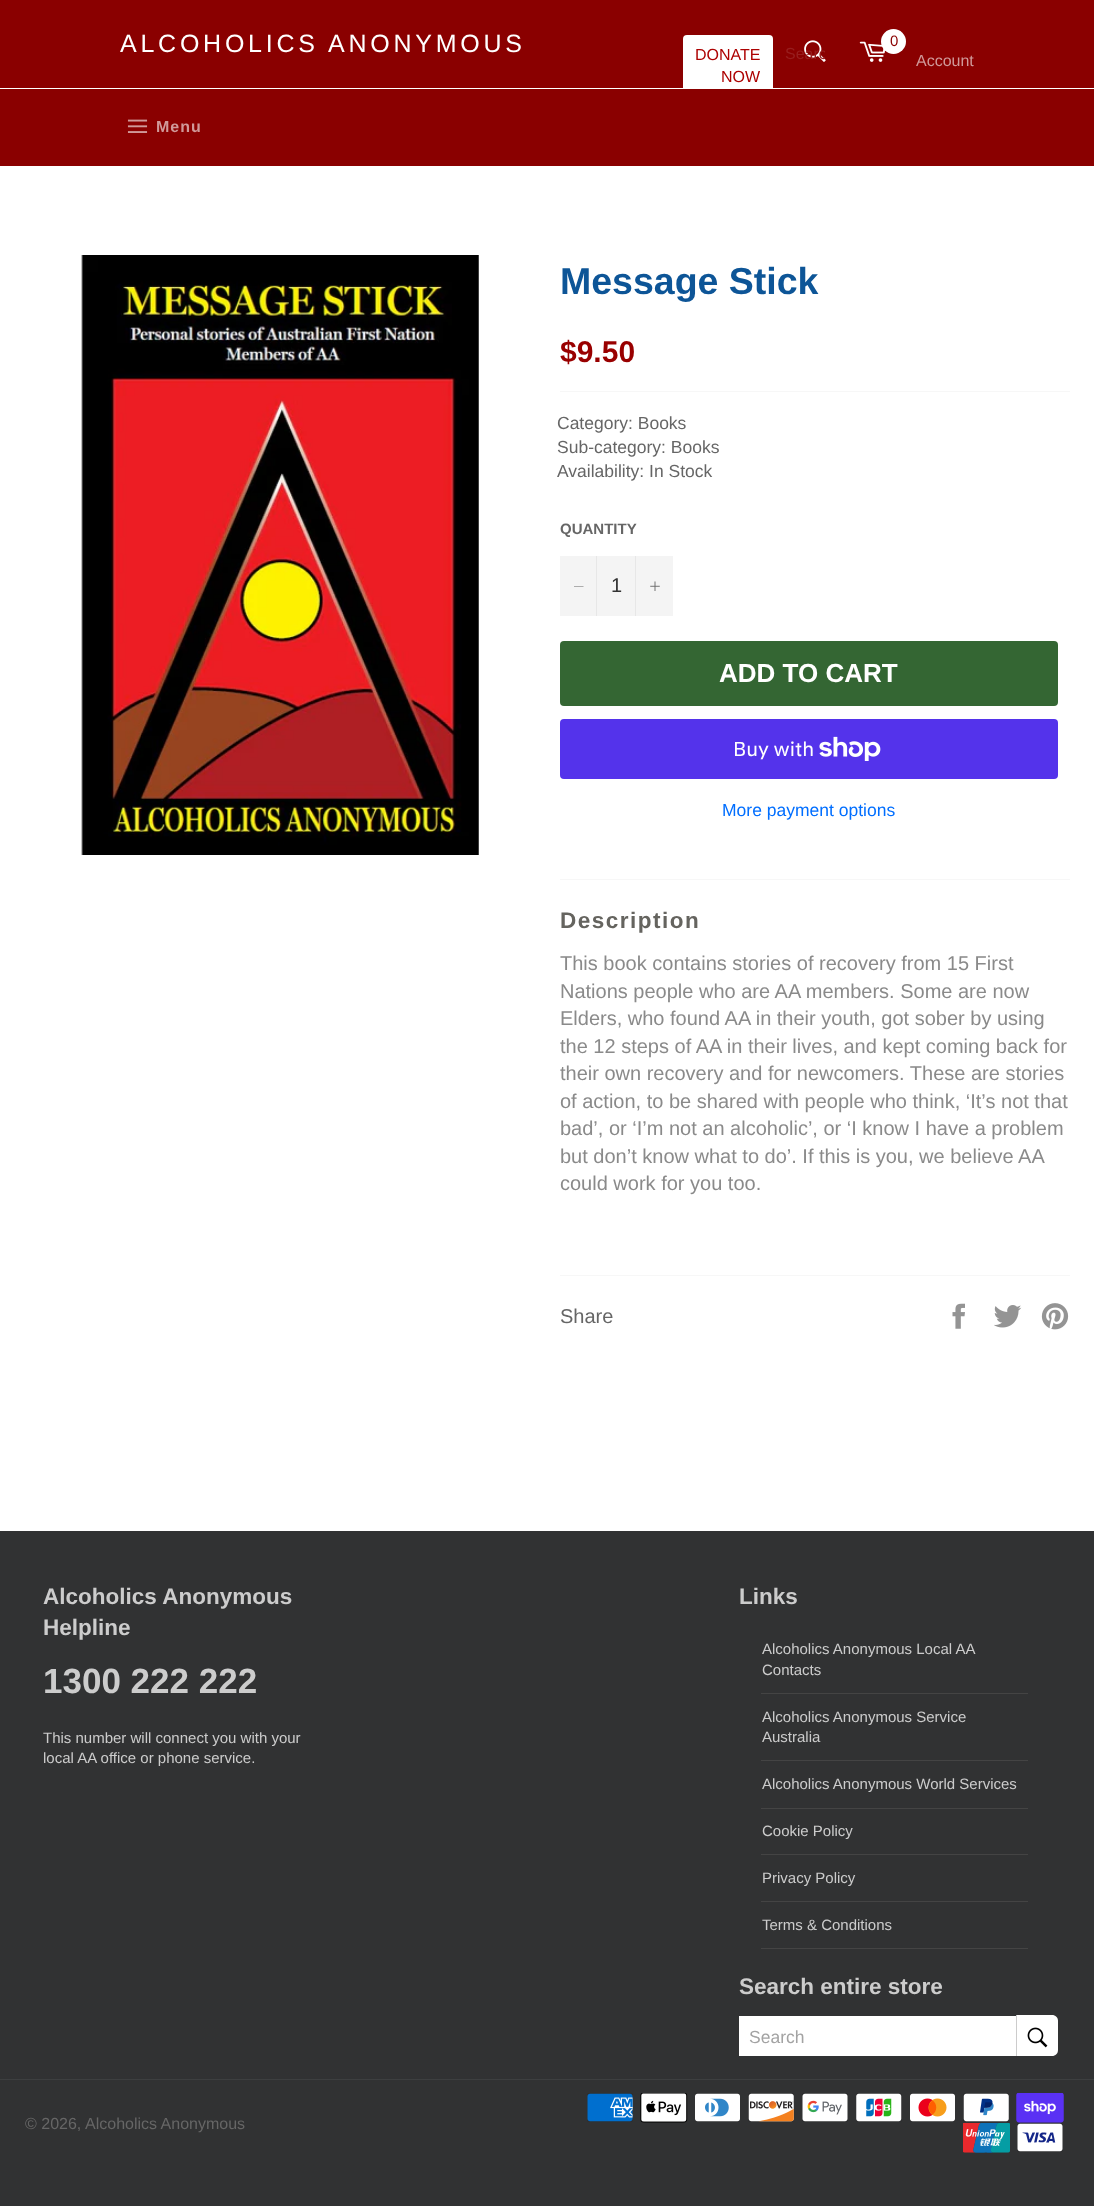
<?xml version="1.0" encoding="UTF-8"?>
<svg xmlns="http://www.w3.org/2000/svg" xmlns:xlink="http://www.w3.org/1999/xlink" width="1094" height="2206">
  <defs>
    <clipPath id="clip1"><rect x="785" y="45" width="40" height="19" /></clipPath>
  </defs>
  <rect width="100%" height="100%" fill="#313233" />
  <rect width="1094" height="88" fill="#8a0000" />
  <image x="859" y="41" width="26" height="21" xlink:href="image1.png" />
  <circle cx="893.5" cy="41.5" r="12.5" fill="#ffffff" />
  <rect x="683" y="35" width="90" height="61" rx="4" fill="#ffffff" />
  <image x="804" y="40" width="22" height="22" xlink:href="image2.png" />
  <rect y="89" width="1094" height="77" fill="#8a0000" />
  <rect y="88" width="1094" height="1" fill="#ffffff" />
  <image x="127" y="119" width="21" height="14" xlink:href="image3.png" />
  <rect y="166" width="1094" height="1365" fill="#ffffff" />
  <image x="81" y="255" width="398" height="600" xlink:href="image4.png" />
  <rect x="560" y="391" width="510" height="1" fill="#f7f7f7" />
  <rect x="560" y="556" width="113" height="60" fill="#f4f4f4" />
  <rect x="596" y="556" width="1" height="60" fill="#e7e7e7" />
  <path d="M 583.5 586 v 0.5 h -9.5 v -0.5 z" fill="#666666" fill-rule="evenodd" />
  <rect x="635" y="556" width="1" height="60" fill="#e7e7e7" />
  <image x="650" y="581" width="10" height="10" xlink:href="image5.png" />
  <rect x="560" y="641" width="498" height="65" rx="4" fill="#346633" />
  <rect x="560" y="719" width="498" height="60" rx="4" fill="#5433eb" />
  <image x="819" y="736" width="62" height="25" xlink:href="image6.png" />
  <rect x="560" y="879" width="510" height="1" fill="#f7f7f7" />
  <rect x="560" y="1275" width="510" height="1" fill="#f7f7f7" />
  <image x="952" y="1303" width="13" height="26" xlink:href="image7.png" />
  <image x="994" y="1305" width="28" height="23" xlink:href="image8.png" />
  <image x="1041" y="1303" width="28" height="27" xlink:href="image9.png" />
  <rect x="761" y="1693" width="267" height="1" fill="#444444" />
  <rect x="761" y="1760" width="267" height="1" fill="#444444" />
  <rect x="761" y="1808" width="267" height="1" fill="#444444" />
  <rect x="761" y="1854" width="267" height="1" fill="#444444" />
  <rect x="761" y="1901" width="267" height="1" fill="#444444" />
  <rect x="761" y="1948" width="267" height="1" fill="#444444" />
  <rect x="739" y="2016" width="277" height="40" fill="#ffffff" />
  <path d="M 1016 2015 h 36 c 3.5 0 6 2.5 6 6 v 29 c 0 3.5 -2.5 6 -6 6 h -36 z" fill="#ffffff" />
  <rect x="1016" y="2015" width="1" height="41" fill="#cccccc" />
  <image x="1027" y="2027" width="21" height="21" xlink:href="image10.png" />
  <rect y="2079" width="1094" height="1" fill="#3d3f40" />
  <image x="587" y="2093" width="46" height="29" xlink:href="image11.png" />
  <image x="640" y="2093" width="48" height="30" xlink:href="image12.png" />
  <image x="695" y="2093" width="45" height="29" xlink:href="image13.png" />
  <image x="748" y="2093" width="46" height="29" xlink:href="image14.png" />
  <image x="802" y="2093" width="46" height="29" xlink:href="image15.png" />
  <image x="856" y="2093" width="46" height="29" xlink:href="image16.png" />
  <image x="910" y="2093" width="45" height="29" xlink:href="image17.png" />
  <image x="963" y="2093" width="46" height="29" xlink:href="image18.png" />
  <image x="1016" y="2093" width="48" height="30" xlink:href="image19.png" />
  <image x="963" y="2123" width="47" height="30" xlink:href="image20.png" />
  <image x="1017" y="2123" width="46" height="29" xlink:href="image21.png" />
  <text x="120" y="52" style="font-family: Liberation Sans; font-size: 25px; letter-spacing: 3.75px; fill: #ffffff">ALCOHOLICS ANONYMOUS</text>
  <text x="890" y="46" style="font-family: Liberation Sans; font-size: 15px; fill: #8a0000">0</text>
  <text x="695" y="60" style="font-family: Liberation Sans; font-size: 16px; fill: #ad0202">DONATE</text>
  <text x="721" y="82" style="font-family: Liberation Sans; font-size: 16px; fill: #ad0202">NOW</text>
  <g clip-path="url(#clip1)">
    <text x="785" y="59" style="font-family: Liberation Sans; font-size: 16px; fill: #981e1e">Searc</text>
  </g>
  <text x="916" y="66" style="font-family: Liberation Sans; font-size: 16px; fill: #d09999">Account</text>
  <text x="156" y="132" style="font-family: Liberation Sans; font-size: 16px; font-weight: bold; letter-spacing: 1px; fill: #d09999">Menu</text>
  <text x="560" y="294" style="font-family: Liberation Sans; font-size: 37.5px; font-weight: bold; fill: #0d5597">Message Stick</text>
  <text x="560" y="362" style="font-family: Liberation Sans; font-size: 30px; font-weight: bold; fill: #990000">$9.50</text>
  <text x="557" y="429" style="font-family: Liberation Sans; font-size: 17.5px; fill: #666666">Category: Books</text>
  <text x="557" y="453" style="font-family: Liberation Sans; font-size: 17.5px; fill: #666666">Sub-category: Books</text>
  <text x="557" y="477" style="font-family: Liberation Sans; font-size: 17.5px; fill: #666666">Availability: In Stock</text>
  <text x="560" y="534" style="font-family: Liberation Sans; font-size: 15px; font-weight: bold; fill: #666666">QUANTITY</text>
  <text x="611" y="592" style="font-family: Liberation Sans; font-size: 20px; fill: #333333">1</text>
  <text x="719" y="682" style="font-family: Liberation Sans; font-size: 26px; font-weight: bold; fill: #ffffff">ADD TO CART</text>
  <text x="733" y="756" style="font-family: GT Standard; font-size: 20px; fill: #ffffff">Buy with</text>
  <text x="722" y="816" style="font-family: Liberation Sans; font-size: 17.5px; fill: #006eff">More payment options</text>
  <text x="560" y="928" style="font-family: Liberation Sans; font-size: 22.5px; font-weight: bold; letter-spacing: 1.5px; fill: #65645f">Description</text>
  <text x="560" y="970" style="font-family: Liberation Sans; font-size: 20px; fill: #8a8a8a">This book contains stories of recovery from 15 First</text>
  <text x="560" y="998" style="font-family: Liberation Sans; font-size: 20px; fill: #8a8a8a">Nations people who are AA members. Some are now</text>
  <text x="560" y="1025" style="font-family: Liberation Sans; font-size: 20px; fill: #8a8a8a">Elders, who found AA in their youth, got sober by using</text>
  <text x="560" y="1053" style="font-family: Liberation Sans; font-size: 20px; fill: #8a8a8a">the 12 steps of AA in their lives, and kept coming back for</text>
  <text x="560" y="1080" style="font-family: Liberation Sans; font-size: 20px; fill: #8a8a8a">their own recovery and for newcomers. These are stories</text>
  <text x="560" y="1108" style="font-family: Liberation Sans; font-size: 20px; fill: #8a8a8a">of action, to be shared with people who think, ‘It’s not that</text>
  <text x="560" y="1135" style="font-family: Liberation Sans; font-size: 20px; fill: #8a8a8a">bad’, or ‘I’m not an alcoholic’, or ‘I know I have a problem</text>
  <text x="560" y="1163" style="font-family: Liberation Sans; font-size: 20px; fill: #8a8a8a">but don’t know what to do’. If this is you, we believe AA</text>
  <text x="560" y="1190" style="font-family: Liberation Sans; font-size: 20px; fill: #8a8a8a">could work for you too.</text>
  <text x="560" y="1323" style="font-family: Liberation Sans; font-size: 20px; fill: #666666">Share</text>
  <text x="43" y="1604" style="font-family: Liberation Sans; font-size: 22.5px; font-weight: bold; fill: #cccccc">Alcoholics Anonymous</text>
  <text x="43" y="1635" style="font-family: Liberation Sans; font-size: 22.5px; font-weight: bold; fill: #cccccc">Helpline</text>
  <text x="43" y="1693" style="font-family: Liberation Sans; font-size: 35px; font-weight: bold; fill: #cccccc">1300 222 222</text>
  <text x="43" y="1743" style="font-family: Liberation Sans; font-size: 15px; fill: #cccccc">This number will connect you with your</text>
  <text x="43" y="1763" style="font-family: Liberation Sans; font-size: 15px; fill: #cccccc">local AA office or phone service.</text>
  <text x="739" y="1604" style="font-family: Liberation Sans; font-size: 22.5px; font-weight: bold; fill: #cccccc">Links</text>
  <text x="762" y="1654" style="font-family: Liberation Sans; font-size: 15px; fill: #cccccc">Alcoholics Anonymous Local AA</text>
  <text x="762" y="1675" style="font-family: Liberation Sans; font-size: 15px; fill: #cccccc">Contacts</text>
  <text x="762" y="1722" style="font-family: Liberation Sans; font-size: 15px; fill: #cccccc">Alcoholics Anonymous Service</text>
  <text x="762" y="1742" style="font-family: Liberation Sans; font-size: 15px; fill: #cccccc">Australia</text>
  <text x="762" y="1789" style="font-family: Liberation Sans; font-size: 15px; fill: #cccccc">Alcoholics Anonymous World Services</text>
  <text x="762" y="1836" style="font-family: Liberation Sans; font-size: 15px; fill: #cccccc">Cookie Policy</text>
  <text x="762" y="1883" style="font-family: Liberation Sans; font-size: 15px; fill: #cccccc">Privacy Policy</text>
  <text x="762" y="1930" style="font-family: Liberation Sans; font-size: 15px; fill: #cccccc">Terms &amp; Conditions</text>
  <text x="739" y="1994" style="font-family: Liberation Sans; font-size: 22.5px; font-weight: bold; fill: #cccccc">Search entire store</text>
  <text x="749" y="2043" style="font-family: Liberation Sans; font-size: 17.5px; fill: #a3a3a3">Search</text>
  <text x="25" y="2129" style="font-family: Liberation Sans; font-size: 16px; fill: #666666">© 2026,</text>
  <text x="85" y="2129" style="font-family: Liberation Sans; font-size: 16px; fill: #666666">Alcoholics Anonymous</text>
</svg>
